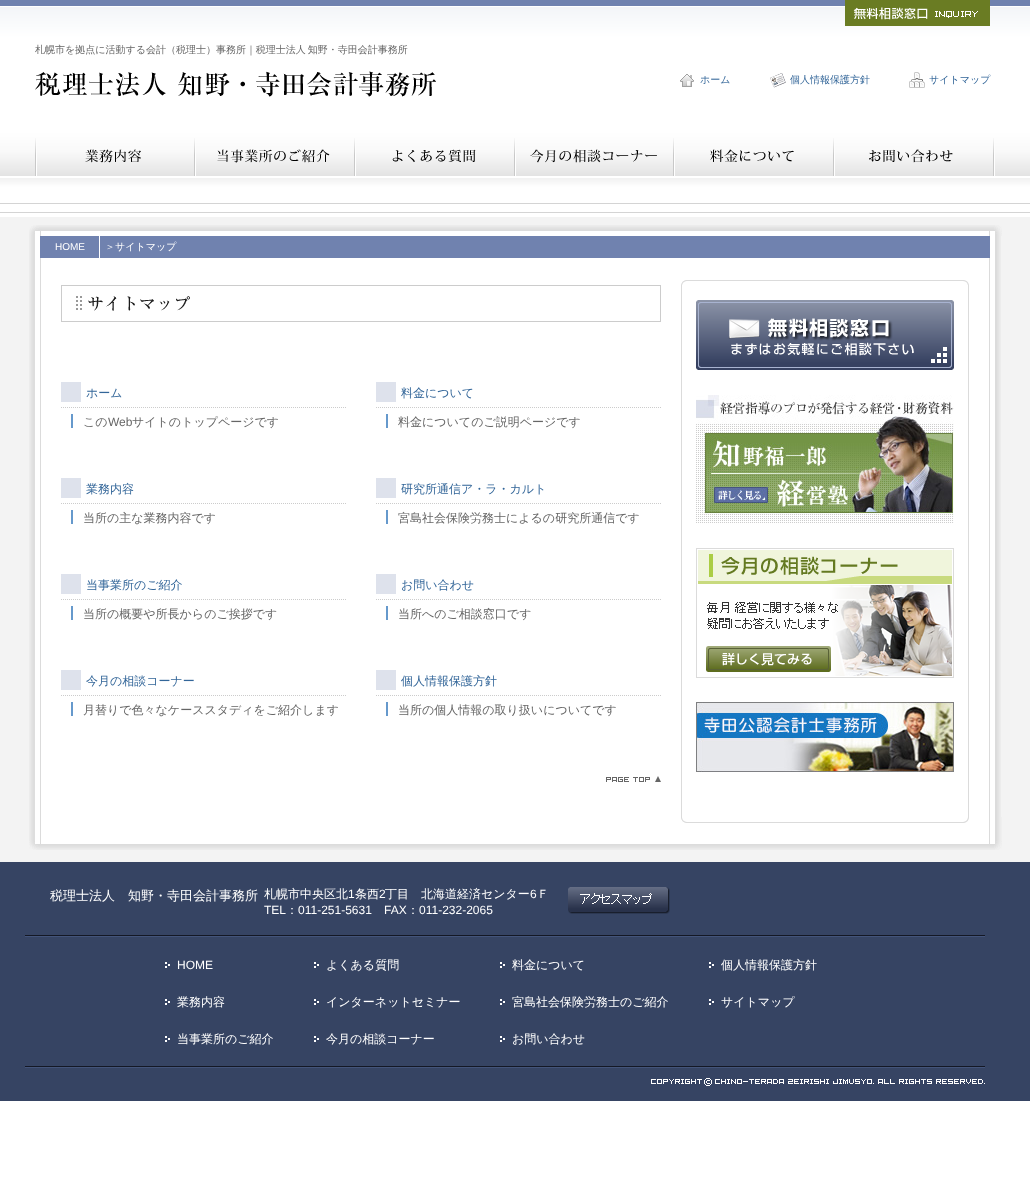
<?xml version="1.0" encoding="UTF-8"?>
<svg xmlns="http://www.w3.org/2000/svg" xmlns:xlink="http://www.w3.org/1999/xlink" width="1030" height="1187">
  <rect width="100%" height="100%" fill="#ffffff" />
  <rect y="217" width="1030" height="645" fill="#f3f3f3" />
  <image x="0" y="0" width="1030" height="217" xlink:href="image1.png" />
  <image x="845" y="0" width="145" height="26" xlink:href="image2.png" />
  <image x="35" y="71" width="401" height="26" xlink:href="image3.png" />
  <image x="680" y="74" width="14" height="13" xlink:href="image4.png" />
  <image x="770" y="73" width="16" height="15" xlink:href="image5.png" />
  <image x="909" y="72" width="16" height="16" xlink:href="image6.png" />
  <image x="35" y="138" width="161" height="38" xlink:href="image7.png" />
  <image x="217" y="138" width="139" height="38" xlink:href="image8.png" />
  <image x="392" y="138" width="123" height="38" xlink:href="image9.png" />
  <image x="515" y="138" width="160" height="38" xlink:href="image10.png" />
  <image x="710" y="138" width="125" height="38" xlink:href="image11.png" />
  <image x="869" y="138" width="126" height="38" xlink:href="image12.png" />
  <image x="29" y="225" width="973" height="11" xlink:href="image13.png" />
  <image x="29" y="236" width="972" height="581" xlink:href="image14.png" />
  <image x="40" y="236" width="950" height="49" xlink:href="image15.png" />
  <image x="61" y="285" width="600" height="37" xlink:href="image16.png" />
  <rect x="61" y="382" width="20" height="20" fill="#dee2ec" />
  <path d="M 61 407.5 h 285" fill="none" stroke="#cccccc" stroke-dasharray="1 1" />
  <rect x="71" y="414" width="2" height="14" fill="#6699cc" />
  <rect x="61" y="478" width="20" height="20" fill="#dee2ec" />
  <path d="M 61 503.5 h 285" fill="none" stroke="#cccccc" stroke-dasharray="1 1" />
  <rect x="71" y="510" width="2" height="14" fill="#6699cc" />
  <rect x="61" y="574" width="20" height="20" fill="#dee2ec" />
  <path d="M 61 599.5 h 285" fill="none" stroke="#cccccc" stroke-dasharray="1 1" />
  <rect x="71" y="606" width="2" height="14" fill="#6699cc" />
  <rect x="61" y="670" width="20" height="20" fill="#dee2ec" />
  <path d="M 61 695.5 h 285" fill="none" stroke="#cccccc" stroke-dasharray="1 1" />
  <rect x="71" y="702" width="2" height="14" fill="#6699cc" />
  <rect x="376" y="382" width="20" height="20" fill="#dee2ec" />
  <path d="M 376 407.5 h 285" fill="none" stroke="#cccccc" stroke-dasharray="1 1" />
  <rect x="386" y="414" width="2" height="14" fill="#6699cc" />
  <rect x="376" y="478" width="20" height="20" fill="#dee2ec" />
  <path d="M 376 503.5 h 285" fill="none" stroke="#cccccc" stroke-dasharray="1 1" />
  <rect x="386" y="510" width="2" height="14" fill="#6699cc" />
  <rect x="376" y="574" width="20" height="20" fill="#dee2ec" />
  <path d="M 376 599.5 h 285" fill="none" stroke="#cccccc" stroke-dasharray="1 1" />
  <rect x="386" y="606" width="2" height="14" fill="#6699cc" />
  <rect x="376" y="670" width="20" height="20" fill="#dee2ec" />
  <path d="M 376 695.5 h 285" fill="none" stroke="#cccccc" stroke-dasharray="1 1" />
  <rect x="386" y="702" width="2" height="14" fill="#6699cc" />
  <image x="606" y="776" width="55" height="6" xlink:href="image17.png" />
  <image x="696" y="300" width="258" height="70" xlink:href="image18.png" />
  <image x="696" y="395" width="258" height="128" xlink:href="image19.png" />
  <image x="696" y="548" width="258" height="130" xlink:href="image20.png" />
  <image x="696" y="702" width="258" height="70" xlink:href="image21.png" />
  <image x="29" y="817" width="973" height="33" xlink:href="image22.png" />
  <rect y="862" width="1030" height="239" fill="#364463" />
  <image x="25" y="935" width="960" height="2" xlink:href="image23.png" />
  <image x="568" y="887" width="102" height="27" xlink:href="image24.png" />
  <image x="25" y="1066" width="960" height="2" xlink:href="image23.png" />
  <image x="165" y="962" width="5" height="6" xlink:href="image25.png" />
  <image x="165" y="999" width="5" height="6" xlink:href="image25.png" />
  <image x="165" y="1036" width="5" height="6" xlink:href="image25.png" />
  <image x="314" y="962" width="5" height="6" xlink:href="image25.png" />
  <image x="314" y="999" width="5" height="6" xlink:href="image25.png" />
  <image x="314" y="1036" width="5" height="6" xlink:href="image25.png" />
  <image x="500" y="962" width="5" height="6" xlink:href="image25.png" />
  <image x="500" y="999" width="5" height="6" xlink:href="image25.png" />
  <image x="500" y="1036" width="5" height="6" xlink:href="image25.png" />
  <image x="709" y="962" width="5" height="6" xlink:href="image25.png" />
  <image x="709" y="999" width="5" height="6" xlink:href="image25.png" />
  <image x="651" y="1078" width="334" height="8" xlink:href="image26.png" />
  <text x="35" y="53" word-spacing="-1" style="font-family: WenQuanYi Zen Hei; font-size: 10px; font-weight: 500; fill: #666666">札幌市を拠点に活動する会計（税理士）事務所｜税理士法人 知野・寺田会計事務所</text>
  <text x="700" y="83" style="font-family: WenQuanYi Zen Hei; font-size: 10px; font-weight: 500; fill: #336699">ホーム</text>
  <text x="790" y="83" style="font-family: WenQuanYi Zen Hei; font-size: 10px; font-weight: 500; fill: #336699">個人情報保護方針</text>
  <text x="929" y="83" style="font-family: WenQuanYi Zen Hei; font-size: 10px; font-weight: 500; fill: #336699">サイトマップ</text>
  <text x="55" y="250" style="font-family: Liberation Sans; font-size: 10px; fill: #ffffff">HOME</text>
  <text x="105" y="250" style="font-family: WenQuanYi Zen Hei; font-size: 10px; font-weight: 500; fill: #ffffff">＞サイトマップ</text>
  <text x="86" y="397" style="font-family: WenQuanYi Zen Hei; font-size: 12px; font-weight: 500; fill: #336699">ホーム</text>
  <text x="83" y="426" style="font-family: WenQuanYi Zen Hei; font-size: 12px; font-weight: 500; fill: #666666">この</text>
  <text x="108" y="426" style="font-family: Liberation Sans; font-size: 12px; fill: #666666">Web</text>
  <text x="132" y="426" style="font-family: WenQuanYi Zen Hei; font-size: 12px; font-weight: 500; fill: #666666">サイトのトップページです</text>
  <text x="86" y="493" style="font-family: WenQuanYi Zen Hei; font-size: 12px; font-weight: 500; fill: #336699">業務内容</text>
  <text x="83" y="522" style="font-family: WenQuanYi Zen Hei; font-size: 12px; font-weight: 500; fill: #666666">当所の主な業務内容です</text>
  <text x="86" y="589" style="font-family: WenQuanYi Zen Hei; font-size: 12px; font-weight: 500; fill: #336699">当事業所のご紹介</text>
  <text x="83" y="618" style="font-family: WenQuanYi Zen Hei; font-size: 12px; font-weight: 500; fill: #666666">当所の概要や所長からのご挨拶です</text>
  <text x="86" y="685" style="font-family: WenQuanYi Zen Hei; font-size: 12px; font-weight: 500; fill: #336699">今月の相談コーナー</text>
  <text x="83" y="714" style="font-family: WenQuanYi Zen Hei; font-size: 12px; font-weight: 500; fill: #666666">月替りで色々なケーススタディをご紹介します</text>
  <text x="401" y="397" style="font-family: WenQuanYi Zen Hei; font-size: 12px; font-weight: 500; fill: #336699">料金について</text>
  <text x="398" y="426" style="font-family: WenQuanYi Zen Hei; font-size: 12px; font-weight: 500; fill: #666666">料金についてのご説明ページです</text>
  <text x="401" y="493" style="font-family: WenQuanYi Zen Hei; font-size: 12px; font-weight: 500; fill: #336699">研究所通信ア・ラ・カルト</text>
  <text x="398" y="522" style="font-family: WenQuanYi Zen Hei; font-size: 12px; font-weight: 500; fill: #666666">宮島社会保険労務士によるの研究所通信です</text>
  <text x="401" y="589" style="font-family: WenQuanYi Zen Hei; font-size: 12px; font-weight: 500; fill: #336699">お問い合わせ</text>
  <text x="398" y="618" style="font-family: WenQuanYi Zen Hei; font-size: 12px; font-weight: 500; fill: #666666">当所へのご相談窓口です</text>
  <text x="401" y="685" style="font-family: WenQuanYi Zen Hei; font-size: 12px; font-weight: 500; fill: #336699">個人情報保護方針</text>
  <text x="398" y="714" style="font-family: WenQuanYi Zen Hei; font-size: 12px; font-weight: 500; fill: #666666">当所の個人情報の取り扱いについてです</text>
  <text x="50" y="900" style="font-family: WenQuanYi Zen Hei; font-size: 13px; font-weight: 500; fill: #ffffff">税理士法人　知野・寺田会計事務所</text>
  <text x="264" y="898" style="font-family: WenQuanYi Zen Hei; font-size: 12px; font-weight: 500; fill: #ffffff">札幌市中央区北</text>
  <text x="348" y="898" style="font-family: Liberation Sans; font-size: 12px; fill: #ffffff">1</text>
  <text x="355" y="898" style="font-family: WenQuanYi Zen Hei; font-size: 12px; font-weight: 500; fill: #ffffff">条西</text>
  <text x="379" y="898" style="font-family: Liberation Sans; font-size: 12px; fill: #ffffff">2</text>
  <text x="385" y="898" style="font-family: WenQuanYi Zen Hei; font-size: 12px; font-weight: 500; fill: #ffffff">丁目　北海道経済センター</text>
  <text x="530" y="898" style="font-family: Liberation Sans; font-size: 12px; fill: #ffffff">6</text>
  <text x="537" y="898" style="font-family: WenQuanYi Zen Hei; font-size: 12px; font-weight: 500; fill: #ffffff">Ｆ</text>
  <text x="264" y="914" style="font-family: Liberation Sans; font-size: 12px; fill: #ffffff">TEL</text>
  <text x="286" y="914" style="font-family: WenQuanYi Zen Hei; font-size: 12px; font-weight: 500; fill: #ffffff">：</text>
  <text x="298" y="914" style="font-family: Liberation Sans; font-size: 12px; fill: #ffffff">011-251-5631</text>
  <text x="384" y="914" style="font-family: Liberation Sans; font-size: 12px; fill: #ffffff">FAX</text>
  <text x="407" y="914" style="font-family: WenQuanYi Zen Hei; font-size: 12px; font-weight: 500; fill: #ffffff">：</text>
  <text x="419" y="914" style="font-family: Liberation Sans; font-size: 12px; fill: #ffffff">011-232-2065</text>
  <text x="177" y="969" style="font-family: Liberation Sans; font-size: 12px; fill: #ffffff">HOME</text>
  <text x="177" y="1006" style="font-family: WenQuanYi Zen Hei; font-size: 12px; font-weight: 500; fill: #ffffff">業務内容</text>
  <text x="177" y="1043" style="font-family: WenQuanYi Zen Hei; font-size: 12px; font-weight: 500; fill: #ffffff">当事業所のご紹介</text>
  <text x="326" y="969" style="font-family: WenQuanYi Zen Hei; font-size: 12px; font-weight: 500; fill: #ffffff">よくある質問</text>
  <text x="326" y="1006" style="font-family: WenQuanYi Zen Hei; font-size: 12px; font-weight: 500; fill: #ffffff">インターネットセミナー</text>
  <text x="326" y="1043" style="font-family: WenQuanYi Zen Hei; font-size: 12px; font-weight: 500; fill: #ffffff">今月の相談コーナー</text>
  <text x="512" y="969" style="font-family: WenQuanYi Zen Hei; font-size: 12px; font-weight: 500; fill: #ffffff">料金について</text>
  <text x="512" y="1006" style="font-family: WenQuanYi Zen Hei; font-size: 12px; font-weight: 500; fill: #ffffff">宮島社会保険労務士のご紹介</text>
  <text x="512" y="1043" style="font-family: WenQuanYi Zen Hei; font-size: 12px; font-weight: 500; fill: #ffffff">お問い合わせ</text>
  <text x="721" y="969" style="font-family: WenQuanYi Zen Hei; font-size: 12px; font-weight: 500; fill: #ffffff">個人情報保護方針</text>
  <text x="721" y="1006" style="font-family: WenQuanYi Zen Hei; font-size: 12px; font-weight: 500; fill: #ffffff">サイトマップ</text>
</svg>
